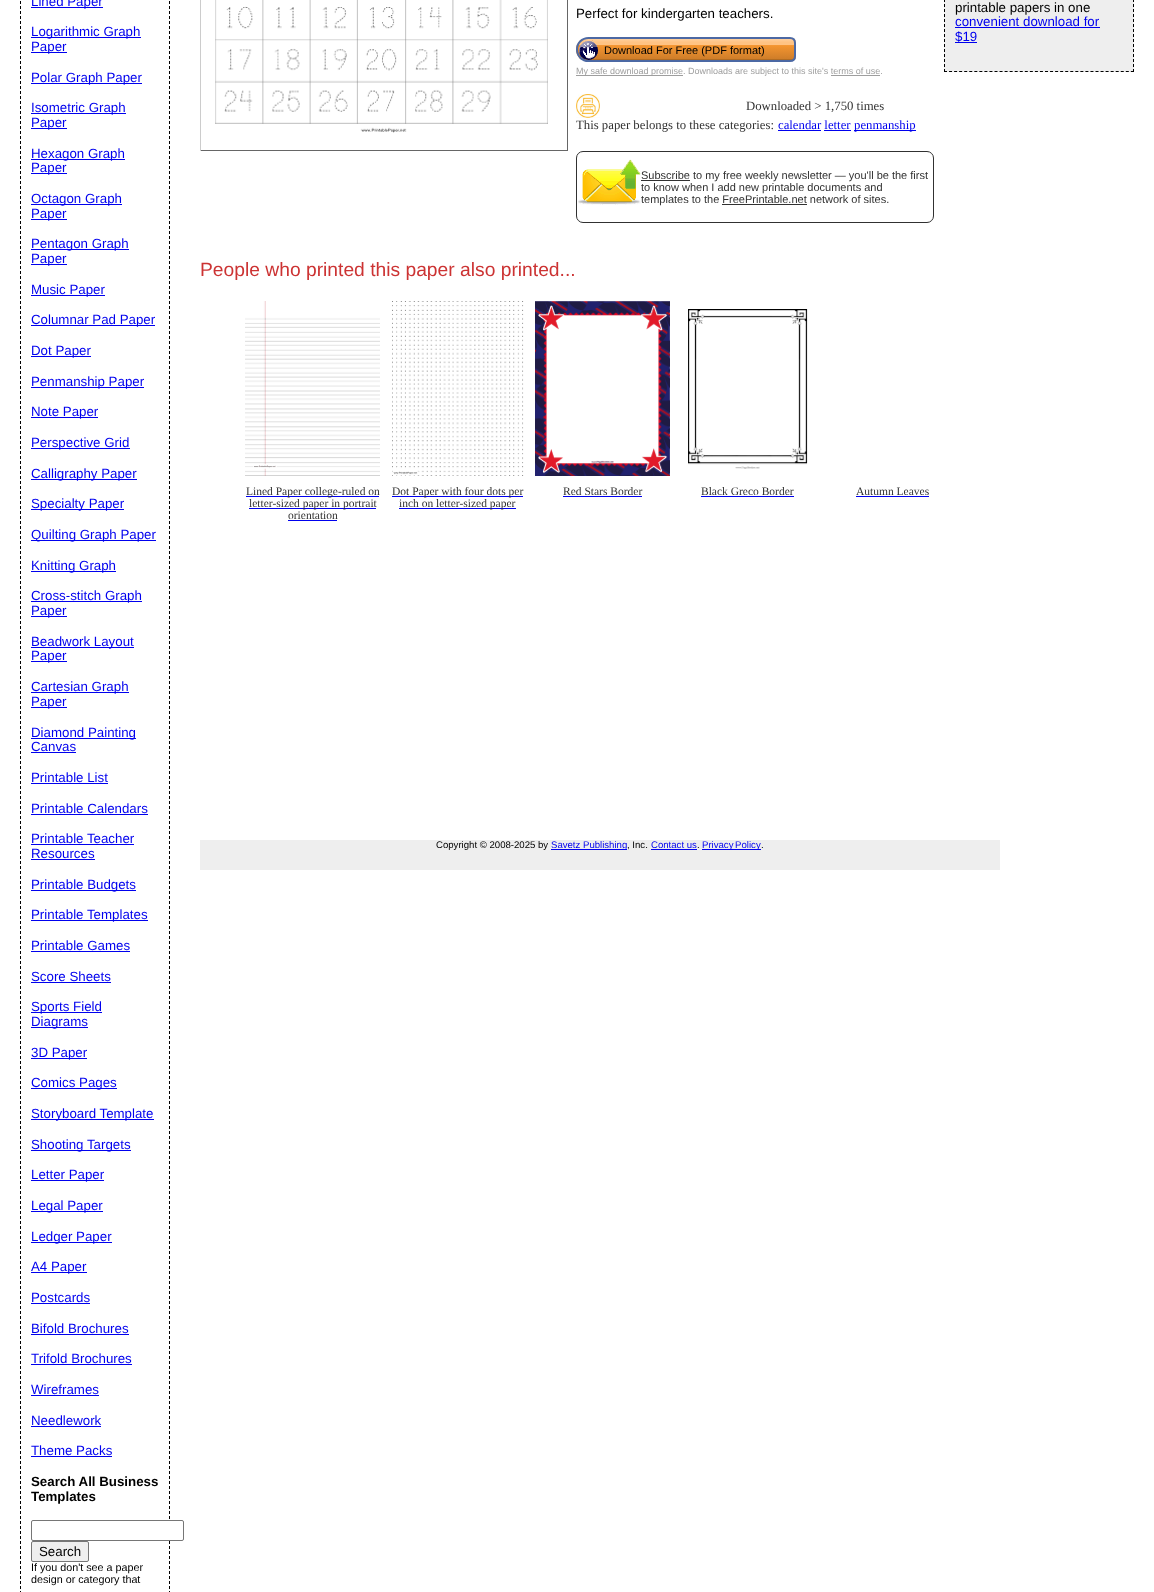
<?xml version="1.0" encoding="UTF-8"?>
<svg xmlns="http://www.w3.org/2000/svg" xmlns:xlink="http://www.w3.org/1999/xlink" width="1154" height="1592">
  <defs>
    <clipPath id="clip1"><path d="M 588.5 37 h 201.5 c 3.5 0 6 2.5 6 6 v 13 c 0 3.5 -2.5 6 -6 6 h -201.5 c -7 0 -12.5 -5.5 -12.5 -12.5 c 0 -7 5.5 -12.5 12.5 -12.5 z" /></clipPath>
    <linearGradient id="g1" gradientUnits="userSpaceOnUse" x1="686" y1="39" x2="686" y2="60"><stop offset="0" stop-color="#ffd09e" /><stop offset="0.15" stop-color="#ffc384" /><stop offset="0.3" stop-color="#ffc384" /><stop offset="0.31" stop-color="#f49530" /><stop offset="0.94" stop-color="#d07e29" /><stop offset="0.95" stop-color="#bf7425" /><stop offset="1" stop-color="#a46420" /></linearGradient>
  </defs>
  <rect width="100%" height="100%" fill="#ffffff" />
  <path d="M 169.5 -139 v 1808" fill="none" stroke="#000000" stroke-dasharray="3 2" />
  <path d="M 20.5 -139 v 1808" fill="none" stroke="#000000" stroke-dasharray="3 2" />
  <rect x="31" y="7" width="72" height="1" fill="#0000ee" />
  <rect x="31" y="37" width="110" height="1" fill="#0000ee" />
  <rect x="31" y="52" width="36" height="1" fill="#0000ee" />
  <rect x="31" y="83" width="111" height="1" fill="#0000ee" />
  <rect x="31" y="113" width="95" height="1" fill="#0000ee" />
  <rect x="31" y="128" width="36" height="1" fill="#0000ee" />
  <rect x="31" y="159" width="94" height="1" fill="#0000ee" />
  <rect x="31" y="173" width="36" height="1" fill="#0000ee" />
  <rect x="31" y="204" width="91" height="1" fill="#0000ee" />
  <rect x="31" y="219" width="36" height="1" fill="#0000ee" />
  <rect x="31" y="249" width="98" height="1" fill="#0000ee" />
  <rect x="31" y="264" width="36" height="1" fill="#0000ee" />
  <rect x="31" y="295" width="74" height="1" fill="#0000ee" />
  <rect x="31" y="325" width="124" height="1" fill="#0000ee" />
  <rect x="31" y="356" width="60" height="1" fill="#0000ee" />
  <rect x="31" y="387" width="113" height="1" fill="#0000ee" />
  <rect x="31" y="417" width="67" height="1" fill="#0000ee" />
  <rect x="31" y="448" width="99" height="1" fill="#0000ee" />
  <rect x="31" y="479" width="106" height="1" fill="#0000ee" />
  <rect x="31" y="509" width="93" height="1" fill="#0000ee" />
  <rect x="31" y="540" width="125" height="1" fill="#0000ee" />
  <rect x="31" y="571" width="85" height="1" fill="#0000ee" />
  <rect x="31" y="601" width="111" height="1" fill="#0000ee" />
  <rect x="31" y="616" width="36" height="1" fill="#0000ee" />
  <rect x="31" y="647" width="103" height="1" fill="#0000ee" />
  <rect x="31" y="661" width="36" height="1" fill="#0000ee" />
  <rect x="31" y="692" width="98" height="1" fill="#0000ee" />
  <rect x="31" y="707" width="36" height="1" fill="#0000ee" />
  <rect x="31" y="738" width="105" height="1" fill="#0000ee" />
  <rect x="31" y="752" width="45" height="1" fill="#0000ee" />
  <rect x="31" y="783" width="77" height="1" fill="#0000ee" />
  <rect x="31" y="814" width="117" height="1" fill="#0000ee" />
  <rect x="31" y="844" width="103" height="1" fill="#0000ee" />
  <rect x="31" y="859" width="64" height="1" fill="#0000ee" />
  <rect x="31" y="890" width="105" height="1" fill="#0000ee" />
  <rect x="31" y="920" width="117" height="1" fill="#0000ee" />
  <rect x="31" y="951" width="99" height="1" fill="#0000ee" />
  <rect x="31" y="982" width="80" height="1" fill="#0000ee" />
  <rect x="31" y="1012" width="71" height="1" fill="#0000ee" />
  <rect x="31" y="1027" width="57" height="1" fill="#0000ee" />
  <rect x="31" y="1058" width="56" height="1" fill="#0000ee" />
  <rect x="31" y="1088" width="86" height="1" fill="#0000ee" />
  <rect x="31" y="1119" width="123" height="1" fill="#0000ee" />
  <rect x="31" y="1150" width="100" height="1" fill="#0000ee" />
  <rect x="31" y="1180" width="73" height="1" fill="#0000ee" />
  <rect x="31" y="1211" width="72" height="1" fill="#0000ee" />
  <rect x="31" y="1242" width="81" height="1" fill="#0000ee" />
  <rect x="31" y="1272" width="56" height="1" fill="#0000ee" />
  <rect x="31" y="1303" width="59" height="1" fill="#0000ee" />
  <rect x="31" y="1334" width="98" height="1" fill="#0000ee" />
  <rect x="31" y="1364" width="101" height="1" fill="#0000ee" />
  <rect x="31" y="1395" width="68" height="1" fill="#0000ee" />
  <rect x="31" y="1426" width="70" height="1" fill="#0000ee" />
  <rect x="31" y="1456" width="81" height="1" fill="#0000ee" />
  <rect x="31.5" y="1520.5" width="152" height="20" rx="1.5" fill="#ffffff" stroke="#767676" />
  <rect x="31.5" y="1541.5" width="57" height="20" rx="1.5" fill="#efefef" stroke="#767676" />
  <rect x="567" width="1" height="151" fill="#666666" />
  <rect x="200" y="150" width="368" height="1" fill="#666666" />
  <rect x="200" width="1" height="151" fill="#cccccc" />
  <image x="215" y="0" width="333" height="133" xlink:href="image1.png" />
  <g clip-path="url(#clip1)">
    <rect x="576" y="39" width="220" height="21" fill="url(#g1)" />
  </g>
  <path d="M 588.5 38 h 201.5 c 3 0 5 2 5 5 v 13 c 0 3 -2 5 -5 5 h -201.5 c -6.5 0 -11.5 -5 -11.5 -11.5 c 0 -6.5 5 -11.5 11.5 -11.5 z" fill="none" stroke="#4c69a4" stroke-width="2" />
  <image x="579" y="40" width="19" height="20" xlink:href="image2.png" />
  <rect x="576" y="75" width="107" height="1" fill="#9e9e9e" />
  <rect x="831" y="75" width="49" height="1" fill="#9e9e9e" />
  <image x="576" y="94" width="24" height="24" xlink:href="image3.png" />
  <rect x="778" y="130" width="43" height="1" fill="#0000ee" />
  <rect x="854" y="130" width="62" height="1" fill="#0000ee" />
  <rect x="824" y="130" width="27" height="1" fill="#0000ee" />
  <rect x="576.5" y="151.5" width="357" height="71" rx="6.5" fill="none" stroke="#313131" />
  <image x="578" y="159" width="63" height="46" xlink:href="image4.png" />
  <rect x="641" y="180" width="49" height="1" fill="#313131" />
  <rect x="722" y="204" width="85" height="1" fill="#313131" />
  <image x="245" y="301" width="135" height="175" xlink:href="image5.png" />
  <rect x="246" y="496" width="133" height="1" fill="#0000ee" />
  <rect x="249" y="508" width="127" height="1" fill="#0000ee" />
  <rect x="288" y="520" width="49" height="1" fill="#0000ee" />
  <image x="392" y="301" width="132" height="175" xlink:href="image6.png" />
  <rect x="392" y="496" width="131" height="1" fill="#0000ee" />
  <rect x="399" y="508" width="117" height="1" fill="#0000ee" />
  <image x="535" y="301" width="135" height="175" xlink:href="image7.png" />
  <rect x="563" y="496" width="79" height="1" fill="#0000ee" />
  <image x="688" y="309" width="120" height="160" xlink:href="image8.png" />
  <rect x="701" y="496" width="93" height="1" fill="#0000ee" />
  <rect x="856" y="496" width="73" height="1" fill="#0000ee" />
  <rect x="944" width="190" height="72" fill="#eeeeee" />
  <path d="M 1133.5 -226 v 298" fill="none" stroke="#000000" stroke-dasharray="3 2" />
  <path d="M 944 71.5 h 190" fill="none" stroke="#000000" stroke-dasharray="3 2.05" />
  <path d="M 944.5 -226 v 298" fill="none" stroke="#000000" stroke-dasharray="3 2" />
  <rect x="955" y="27" width="145" height="1" fill="#0000ee" />
  <rect x="955" y="42" width="22" height="1" fill="#0000ee" />
  <rect x="200" y="840" width="800" height="30" fill="#eeeeee" />
  <rect x="551" y="849" width="76" height="1" fill="#0000ee" />
  <rect x="651" y="849" width="46" height="1" fill="#0000ee" />
  <rect x="702" y="849" width="59" height="1" fill="#0000ee" />
  <text x="31" y="6" style="font-family: Liberation Sans; font-size: 13.3px; fill: #0000ee">Lined Paper</text>
  <text x="31" y="36" style="font-family: Liberation Sans; font-size: 13.3px; fill: #0000ee">Logarithmic Graph</text>
  <text x="31" y="51" style="font-family: Liberation Sans; font-size: 13.3px; fill: #0000ee">Paper</text>
  <text x="31" y="82" style="font-family: Liberation Sans; font-size: 13.3px; fill: #0000ee">Polar Graph Paper</text>
  <text x="31" y="112" style="font-family: Liberation Sans; font-size: 13.3px; fill: #0000ee">Isometric Graph</text>
  <text x="31" y="127" style="font-family: Liberation Sans; font-size: 13.3px; fill: #0000ee">Paper</text>
  <text x="31" y="158" style="font-family: Liberation Sans; font-size: 13.3px; fill: #0000ee">Hexagon Graph</text>
  <text x="31" y="172" style="font-family: Liberation Sans; font-size: 13.3px; fill: #0000ee">Paper</text>
  <text x="31" y="203" style="font-family: Liberation Sans; font-size: 13.3px; fill: #0000ee">Octagon Graph</text>
  <text x="31" y="218" style="font-family: Liberation Sans; font-size: 13.3px; fill: #0000ee">Paper</text>
  <text x="31" y="248" style="font-family: Liberation Sans; font-size: 13.3px; fill: #0000ee">Pentagon Graph</text>
  <text x="31" y="263" style="font-family: Liberation Sans; font-size: 13.3px; fill: #0000ee">Paper</text>
  <text x="31" y="294" style="font-family: Liberation Sans; font-size: 13.3px; fill: #0000ee">Music Paper</text>
  <text x="31" y="324" style="font-family: Liberation Sans; font-size: 13.3px; fill: #0000ee">Columnar Pad Paper</text>
  <text x="31" y="355" style="font-family: Liberation Sans; font-size: 13.3px; fill: #0000ee">Dot Paper</text>
  <text x="31" y="386" style="font-family: Liberation Sans; font-size: 13.3px; fill: #0000ee">Penmanship Paper</text>
  <text x="31" y="416" style="font-family: Liberation Sans; font-size: 13.3px; fill: #0000ee">Note Paper</text>
  <text x="31" y="447" style="font-family: Liberation Sans; font-size: 13.3px; fill: #0000ee">Perspective Grid</text>
  <text x="31" y="478" style="font-family: Liberation Sans; font-size: 13.3px; fill: #0000ee">Calligraphy Paper</text>
  <text x="31" y="508" style="font-family: Liberation Sans; font-size: 13.3px; fill: #0000ee">Specialty Paper</text>
  <text x="31" y="539" style="font-family: Liberation Sans; font-size: 13.3px; fill: #0000ee">Quilting Graph Paper</text>
  <text x="31" y="570" style="font-family: Liberation Sans; font-size: 13.3px; fill: #0000ee">Knitting Graph</text>
  <text x="31" y="600" style="font-family: Liberation Sans; font-size: 13.3px; fill: #0000ee">Cross-stitch Graph</text>
  <text x="31" y="615" style="font-family: Liberation Sans; font-size: 13.3px; fill: #0000ee">Paper</text>
  <text x="31" y="646" style="font-family: Liberation Sans; font-size: 13.3px; fill: #0000ee">Beadwork Layout</text>
  <text x="31" y="660" style="font-family: Liberation Sans; font-size: 13.3px; fill: #0000ee">Paper</text>
  <text x="31" y="691" style="font-family: Liberation Sans; font-size: 13.3px; fill: #0000ee">Cartesian Graph</text>
  <text x="31" y="706" style="font-family: Liberation Sans; font-size: 13.3px; fill: #0000ee">Paper</text>
  <text x="31" y="737" style="font-family: Liberation Sans; font-size: 13.3px; fill: #0000ee">Diamond Painting</text>
  <text x="31" y="751" style="font-family: Liberation Sans; font-size: 13.3px; fill: #0000ee">Canvas</text>
  <text x="31" y="782" style="font-family: Liberation Sans; font-size: 13.3px; fill: #0000ee">Printable List</text>
  <text x="31" y="813" style="font-family: Liberation Sans; font-size: 13.3px; fill: #0000ee">Printable Calendars</text>
  <text x="31" y="843" style="font-family: Liberation Sans; font-size: 13.3px; fill: #0000ee">Printable Teacher</text>
  <text x="31" y="858" style="font-family: Liberation Sans; font-size: 13.3px; fill: #0000ee">Resources</text>
  <text x="31" y="889" style="font-family: Liberation Sans; font-size: 13.3px; fill: #0000ee">Printable Budgets</text>
  <text x="31" y="919" style="font-family: Liberation Sans; font-size: 13.3px; fill: #0000ee">Printable Templates</text>
  <text x="31" y="950" style="font-family: Liberation Sans; font-size: 13.3px; fill: #0000ee">Printable Games</text>
  <text x="31" y="981" style="font-family: Liberation Sans; font-size: 13.3px; fill: #0000ee">Score Sheets</text>
  <text x="31" y="1011" style="font-family: Liberation Sans; font-size: 13.3px; fill: #0000ee">Sports Field</text>
  <text x="31" y="1026" style="font-family: Liberation Sans; font-size: 13.3px; fill: #0000ee">Diagrams</text>
  <text x="31" y="1057" style="font-family: Liberation Sans; font-size: 13.3px; fill: #0000ee">3D Paper</text>
  <text x="31" y="1087" style="font-family: Liberation Sans; font-size: 13.3px; fill: #0000ee">Comics Pages</text>
  <text x="31" y="1118" style="font-family: Liberation Sans; font-size: 13.3px; fill: #0000ee">Storyboard Template</text>
  <text x="31" y="1149" style="font-family: Liberation Sans; font-size: 13.3px; fill: #0000ee">Shooting Targets</text>
  <text x="31" y="1179" style="font-family: Liberation Sans; font-size: 13.3px; fill: #0000ee">Letter Paper</text>
  <text x="31" y="1210" style="font-family: Liberation Sans; font-size: 13.3px; fill: #0000ee">Legal Paper</text>
  <text x="31" y="1241" style="font-family: Liberation Sans; font-size: 13.3px; fill: #0000ee">Ledger Paper</text>
  <text x="31" y="1271" style="font-family: Liberation Sans; font-size: 13.3px; fill: #0000ee">A4 Paper</text>
  <text x="31" y="1302" style="font-family: Liberation Sans; font-size: 13.3px; fill: #0000ee">Postcards</text>
  <text x="31" y="1333" style="font-family: Liberation Sans; font-size: 13.3px; fill: #0000ee">Bifold Brochures</text>
  <text x="31" y="1363" style="font-family: Liberation Sans; font-size: 13.3px; fill: #0000ee">Trifold Brochures</text>
  <text x="31" y="1394" style="font-family: Liberation Sans; font-size: 13.3px; fill: #0000ee">Wireframes</text>
  <text x="31" y="1425" style="font-family: Liberation Sans; font-size: 13.3px; fill: #0000ee">Needlework</text>
  <text x="31" y="1455" style="font-family: Liberation Sans; font-size: 13.3px; fill: #0000ee">Theme Packs</text>
  <text x="31" y="1486" style="font-family: Liberation Sans; font-size: 13.3px; font-weight: bold; fill: #000000">Search All Business</text>
  <text x="31" y="1501" style="font-family: Liberation Sans; font-size: 13.3px; font-weight: bold; fill: #000000">Templates</text>
  <text x="39" y="1556" style="font-family: Liberation Sans; font-size: 13.3px; fill: #000000">Search</text>
  <text x="31" y="1571" style="font-family: Liberation Sans; font-size: 10.75px; fill: #000000">If you don't see a paper</text>
  <text x="31" y="1583" style="font-family: Liberation Sans; font-size: 10.75px; fill: #000000">design or category that</text>
  <text x="576" y="18" style="font-family: Liberation Sans; font-size: 13.3px; fill: #000000">Perfect for kindergarten teachers.</text>
  <text x="604" y="54" style="font-family: Liberation Sans; font-size: 11px; fill: #000000">Download For Free (PDF format)</text>
  <text x="576" y="74" style="font-family: Liberation Sans; font-size: 9px; fill: #9e9e9e">My safe download promise. Downloads are subject to this site's terms of use.</text>
  <text x="746" y="110" style="font-family: Liberation Serif; font-size: 12.75px; fill: #313131">Downloaded &gt; 1,750 times</text>
  <text x="576" y="129" style="font-family: Liberation Serif; font-size: 12.75px; fill: #313131">This paper belongs to these categories:</text>
  <text x="778" y="129" style="font-family: Liberation Serif; font-size: 12.75px; fill: #0000ee">calendar letter</text>
  <text x="854" y="129" style="font-family: Liberation Serif; font-size: 12.75px; fill: #0000ee">penmanship</text>
  <text x="641" y="179" style="font-family: Liberation Sans; font-size: 11px; fill: #313131">Subscribe to my free weekly newsletter — you'll be the first</text>
  <text x="641" y="191" style="font-family: Liberation Sans; font-size: 11px; fill: #313131">to know when I add new printable documents and</text>
  <text x="641" y="203" style="font-family: Liberation Sans; font-size: 11px; fill: #313131">templates to the FreePrintable.net network of sites.</text>
  <text x="200" y="276" style="font-family: Liberation Sans; font-size: 19.25px; fill: #cc3333">People who printed this paper also printed...</text>
  <text x="246" y="495" style="font-family: Liberation Serif; font-size: 11.5px; fill: #313131">Lined Paper college-ruled on</text>
  <text x="249" y="507" style="font-family: Liberation Serif; font-size: 11.5px; fill: #313131">letter-sized paper in portrait</text>
  <text x="288" y="519" style="font-family: Liberation Serif; font-size: 11.5px; fill: #313131">orientation</text>
  <text x="392" y="495" style="font-family: Liberation Serif; font-size: 11.5px; fill: #313131">Dot Paper with four dots per</text>
  <text x="399" y="507" style="font-family: Liberation Serif; font-size: 11.5px; fill: #313131">inch on letter-sized paper</text>
  <text x="563" y="495" style="font-family: Liberation Serif; font-size: 11.5px; fill: #313131">Red Stars Border</text>
  <text x="701" y="495" style="font-family: Liberation Serif; font-size: 11.5px; fill: #313131">Black Greco Border</text>
  <text x="856" y="495" style="font-family: Liberation Serif; font-size: 11.5px; fill: #313131">Autumn Leaves</text>
  <text x="955" y="12" style="font-family: Liberation Sans; font-size: 13.3px; fill: #000000">printable papers in one</text>
  <text x="955" y="26" style="font-family: Liberation Sans; font-size: 13.3px; fill: #0000ee">convenient download for</text>
  <text x="955" y="41" style="font-family: Liberation Sans; font-size: 13.3px; fill: #0000ee">$19</text>
  <text x="436" y="848" style="font-family: Liberation Sans; font-size: 9.6px; fill: #000000">Copyright © 2008-2025 by</text>
  <text x="551" y="848" style="font-family: Liberation Sans; font-size: 9.6px; fill: #0000ee">Savetz Publishing</text>
  <text x="627" y="848" style="font-family: Liberation Sans; font-size: 9.6px; fill: #000000">, Inc.</text>
  <text x="651" y="848" style="font-family: Liberation Sans; font-size: 9.6px; fill: #0000ee">Contact us</text>
  <text x="697" y="848" style="font-family: Liberation Sans; font-size: 9.6px; fill: #000000">.</text>
  <text x="702" y="848" word-spacing="-1" style="font-family: Liberation Sans; font-size: 9.6px; fill: #0000ee">Privacy Policy</text>
  <text x="761" y="848" style="font-family: Liberation Sans; font-size: 9.6px; fill: #000000">.</text>
</svg>
